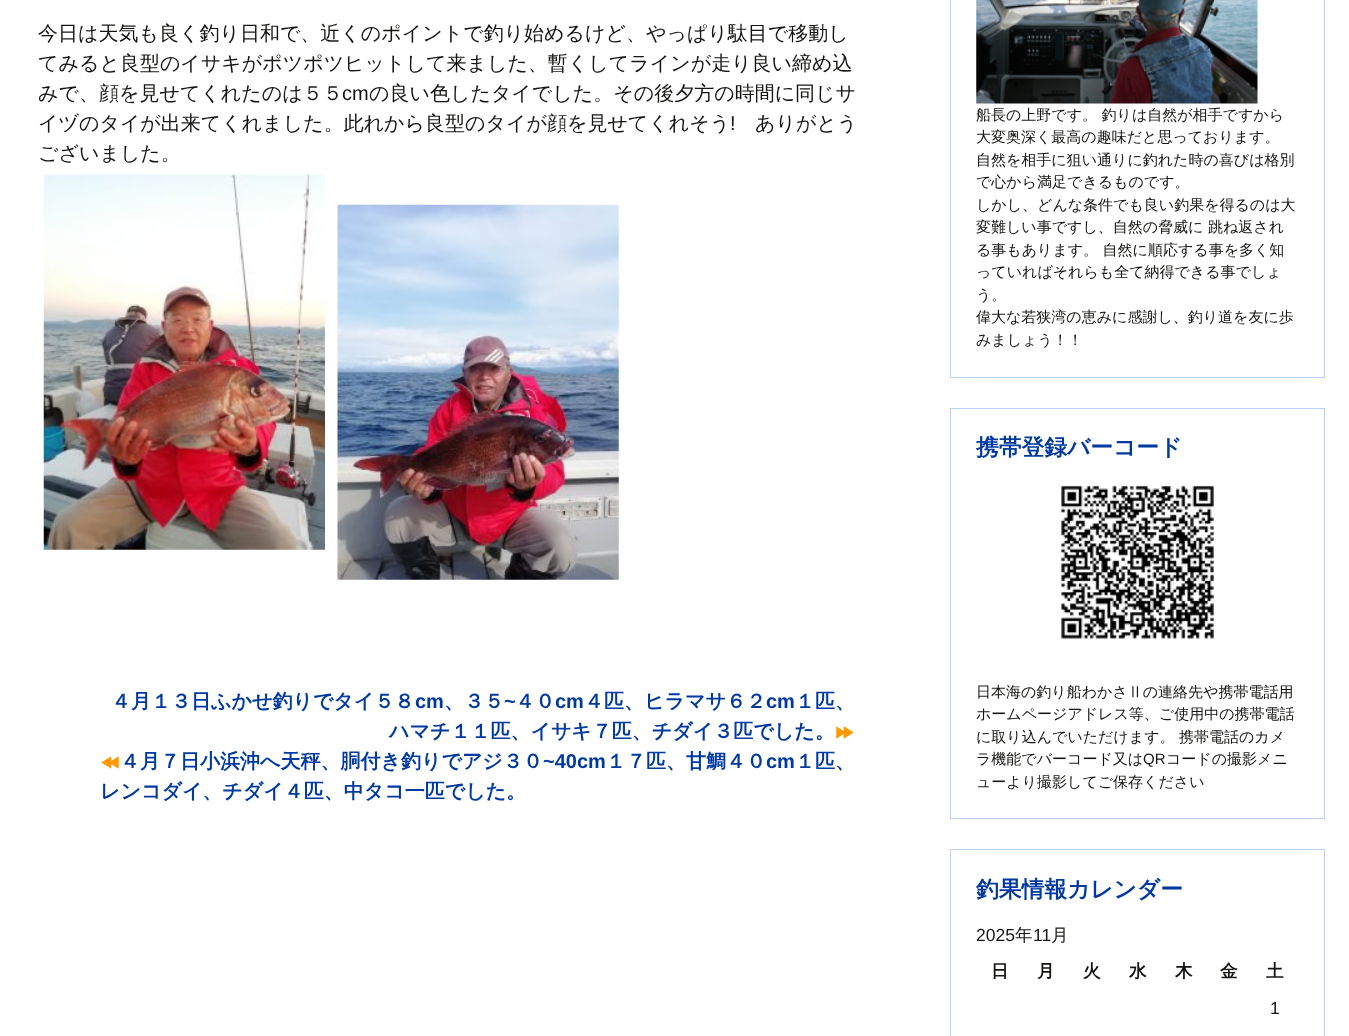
<?xml version="1.0" encoding="UTF-8"?>
<svg xmlns="http://www.w3.org/2000/svg" xmlns:xlink="http://www.w3.org/1999/xlink" width="1349" height="1036">
  <rect width="100%" height="100%" fill="#ffffff" />
  <image x="43" y="174" width="282" height="376" xlink:href="image1.png" />
  <image x="337" y="204" width="282" height="376" xlink:href="image2.png" />
  <image x="836" y="726" width="18" height="13" xlink:href="image3.png" />
  <image x="101" y="756" width="18" height="13" xlink:href="image4.png" />
  <rect x="950.5" y="-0.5" width="374" height="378" fill="none" stroke="#b9d1ff" />
  <image x="976" y="0" width="282" height="104" xlink:href="image5.png" />
  <rect x="950.5" y="408.5" width="374" height="410" fill="none" stroke="#b9d1ff" />
  <image x="1061" y="485" width="153" height="154" xlink:href="image6.png" />
  <rect x="950.5" y="849.5" width="374" height="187" fill="none" stroke="#b9d1ff" />
  <text x="38" y="40" style="font-family: WenQuanYi Zen Hei; font-size: 20px; font-weight: 500; fill: #141412">今日は天気も良く釣り日和で、近くのポイントで釣り始めるけど、やっぱり駄目で移動し</text>
  <text x="38" y="70" style="font-family: WenQuanYi Zen Hei; font-size: 20px; font-weight: 500; fill: #141412">てみると良型のイサキがポツポツヒットして来ました、暫くしてラインが走り良い締め込</text>
  <text x="38" y="100" style="font-family: WenQuanYi Zen Hei; font-size: 20px; font-weight: 500; fill: #141412">みで、顔を見せてくれたのは５５</text>
  <text x="342" y="100" style="font-family: Liberation Sans; font-size: 20px; fill: #141412">cm</text>
  <text x="369" y="100" style="font-family: WenQuanYi Zen Hei; font-size: 20px; font-weight: 500; fill: #141412">の良い色したタイでした。その後夕方の時間に同じサ</text>
  <text x="38" y="130" style="font-family: WenQuanYi Zen Hei; font-size: 20px; font-weight: 500; fill: #141412">イヅのタイが出来てくれました。此れから良型のタイが顔を見せてくれそう</text>
  <text x="730" y="130" style="font-family: Liberation Sans; font-size: 20px; fill: #141412">!</text>
  <text x="755" y="130" style="font-family: WenQuanYi Zen Hei; font-size: 20px; font-weight: 500; fill: #141412">ありがとう</text>
  <text x="38" y="160" style="font-family: WenQuanYi Zen Hei; font-size: 20px; font-weight: 500; fill: #141412">ございました。</text>
  <text x="111" y="708" style="font-family: WenQuanYi Zen Hei; font-size: 20px; font-weight: bold; fill: #003aa1">４月１３日ふかせ釣りでタイ５８</text>
  <text x="415" y="708" style="font-family: Liberation Sans; font-size: 20px; font-weight: bold; fill: #003aa1">cm</text>
  <text x="444" y="708" style="font-family: WenQuanYi Zen Hei; font-size: 20px; font-weight: bold; fill: #003aa1">、３５</text>
  <text x="504" y="708" style="font-family: Liberation Sans; font-size: 20px; font-weight: bold; fill: #003aa1">~</text>
  <text x="515" y="708" style="font-family: WenQuanYi Zen Hei; font-size: 20px; font-weight: bold; fill: #003aa1">４０</text>
  <text x="555" y="708" style="font-family: Liberation Sans; font-size: 20px; font-weight: bold; fill: #003aa1">cm</text>
  <text x="584" y="708" style="font-family: WenQuanYi Zen Hei; font-size: 20px; font-weight: bold; fill: #003aa1">４匹、ヒラマサ６２</text>
  <text x="766" y="708" style="font-family: Liberation Sans; font-size: 20px; font-weight: bold; fill: #003aa1">cm</text>
  <text x="795" y="708" style="font-family: WenQuanYi Zen Hei; font-size: 20px; font-weight: bold; fill: #003aa1">１匹、</text>
  <text x="389" y="738" style="font-family: WenQuanYi Zen Hei; font-size: 20px; font-weight: bold; fill: #003aa1">ハマチ１１匹、イサキ７匹、チダイ３匹でした。</text>
  <text x="120" y="768" style="font-family: WenQuanYi Zen Hei; font-size: 20px; font-weight: bold; fill: #003aa1">４月７日小浜沖へ天秤、胴付き釣りでアジ３０</text>
  <text x="543" y="768" style="font-family: Liberation Sans; font-size: 20px; font-weight: bold; fill: #003aa1">~40cm</text>
  <text x="606" y="768" style="font-family: WenQuanYi Zen Hei; font-size: 20px; font-weight: bold; fill: #003aa1">１７匹、甘鯛４０</text>
  <text x="766" y="768" style="font-family: Liberation Sans; font-size: 20px; font-weight: bold; fill: #003aa1">cm</text>
  <text x="795" y="768" style="font-family: WenQuanYi Zen Hei; font-size: 20px; font-weight: bold; fill: #003aa1">１匹、</text>
  <text x="100" y="798" style="font-family: WenQuanYi Zen Hei; font-size: 20px; font-weight: bold; fill: #003aa1">レンコダイ、チダイ４匹、中タコ一匹でした。</text>
  <text x="976" y="120" style="font-family: WenQuanYi Zen Hei; font-size: 15px; font-weight: 500; fill: #141412">船長の上野です。 釣りは自然が相手ですから</text>
  <text x="976" y="142" style="font-family: WenQuanYi Zen Hei; font-size: 15px; font-weight: 500; fill: #141412">大変奥深く最高の趣味だと思っております。</text>
  <text x="976" y="165" style="font-family: WenQuanYi Zen Hei; font-size: 15px; font-weight: 500; fill: #141412">自然を相手に狙い通りに釣れた時の喜びは格別</text>
  <text x="976" y="187" style="font-family: WenQuanYi Zen Hei; font-size: 15px; font-weight: 500; fill: #141412">で心から満足できるものです。</text>
  <text x="976" y="210" style="font-family: WenQuanYi Zen Hei; font-size: 15px; font-weight: 500; fill: #141412">しかし、どんな条件でも良い釣果を得るのは大</text>
  <text x="976" y="232" style="font-family: WenQuanYi Zen Hei; font-size: 15px; font-weight: 500; fill: #141412">変難しい事ですし、自然の脅威に 跳ね返され</text>
  <text x="976" y="255" style="font-family: WenQuanYi Zen Hei; font-size: 15px; font-weight: 500; fill: #141412">る事もあります。 自然に順応する事を多く知</text>
  <text x="976" y="277" style="font-family: WenQuanYi Zen Hei; font-size: 15px; font-weight: 500; fill: #141412">っていればそれらも全て納得できる事でしょ</text>
  <text x="976" y="300" style="font-family: WenQuanYi Zen Hei; font-size: 15px; font-weight: 500; fill: #141412">う。</text>
  <text x="976" y="322" style="font-family: WenQuanYi Zen Hei; font-size: 15px; font-weight: 500; fill: #141412">偉大な若狭湾の恵みに感謝し、釣り道を友に歩</text>
  <text x="976" y="345" style="font-family: WenQuanYi Zen Hei; font-size: 15px; font-weight: 500; fill: #141412">みましょう！！</text>
  <text x="976" y="455" style="font-family: WenQuanYi Zen Hei; font-size: 22.75px; font-weight: bold; fill: #003aa1">携帯登録バーコード</text>
  <text x="976" y="697" style="font-family: WenQuanYi Zen Hei; font-size: 15px; font-weight: 500; fill: #141412">日本海の釣り船わかさⅡの連絡先や携帯電話用</text>
  <text x="976" y="719" style="font-family: WenQuanYi Zen Hei; font-size: 15px; font-weight: 500; fill: #141412">ホームページアドレス等、ご使用中の携帯電話</text>
  <text x="976" y="742" style="font-family: WenQuanYi Zen Hei; font-size: 15px; font-weight: 500; fill: #141412">に取り込んでいただけます。 携帯電話のカメ</text>
  <text x="976" y="764" style="font-family: WenQuanYi Zen Hei; font-size: 15px; font-weight: 500; fill: #141412">ラ機能でバーコード又は</text>
  <text x="1143" y="764" style="font-family: Liberation Sans; font-size: 15px; fill: #141412">QR</text>
  <text x="1166" y="764" style="font-family: WenQuanYi Zen Hei; font-size: 15px; font-weight: 500; fill: #141412">コードの撮影メニ</text>
  <text x="976" y="787" style="font-family: WenQuanYi Zen Hei; font-size: 15px; font-weight: 500; fill: #141412">ューより撮影してご保存ください</text>
  <text x="976" y="897" style="font-family: WenQuanYi Zen Hei; font-size: 22.75px; font-weight: bold; fill: #003aa1">釣果情報カレンダー</text>
  <text x="976" y="941" style="font-family: Liberation Sans; font-size: 17.5px; fill: #141412">2025</text>
  <text x="1015" y="941" style="font-family: WenQuanYi Zen Hei; font-size: 17.5px; font-weight: 500; fill: #141412">年</text>
  <text x="1033" y="941" style="font-family: Liberation Sans; font-size: 17.5px; fill: #141412">11</text>
  <text x="1051" y="941" style="font-family: WenQuanYi Zen Hei; font-size: 17.5px; font-weight: 500; fill: #141412">月</text>
  <text x="991" y="977" style="font-family: WenQuanYi Zen Hei; font-size: 17.5px; font-weight: bold; fill: #141412">日</text>
  <text x="1037" y="977" style="font-family: WenQuanYi Zen Hei; font-size: 17.5px; font-weight: bold; fill: #141412">月</text>
  <text x="1083" y="977" style="font-family: WenQuanYi Zen Hei; font-size: 17.5px; font-weight: bold; fill: #141412">火</text>
  <text x="1129" y="977" style="font-family: WenQuanYi Zen Hei; font-size: 17.5px; font-weight: bold; fill: #141412">水</text>
  <text x="1175" y="977" style="font-family: WenQuanYi Zen Hei; font-size: 17.5px; font-weight: bold; fill: #141412">木</text>
  <text x="1220" y="977" style="font-family: WenQuanYi Zen Hei; font-size: 17.5px; font-weight: bold; fill: #141412">金</text>
  <text x="1266" y="977" style="font-family: WenQuanYi Zen Hei; font-size: 17.5px; font-weight: bold; fill: #141412">土</text>
  <text x="1270" y="1014" style="font-family: Liberation Sans; font-size: 17.5px; fill: #141412">1</text>
</svg>
